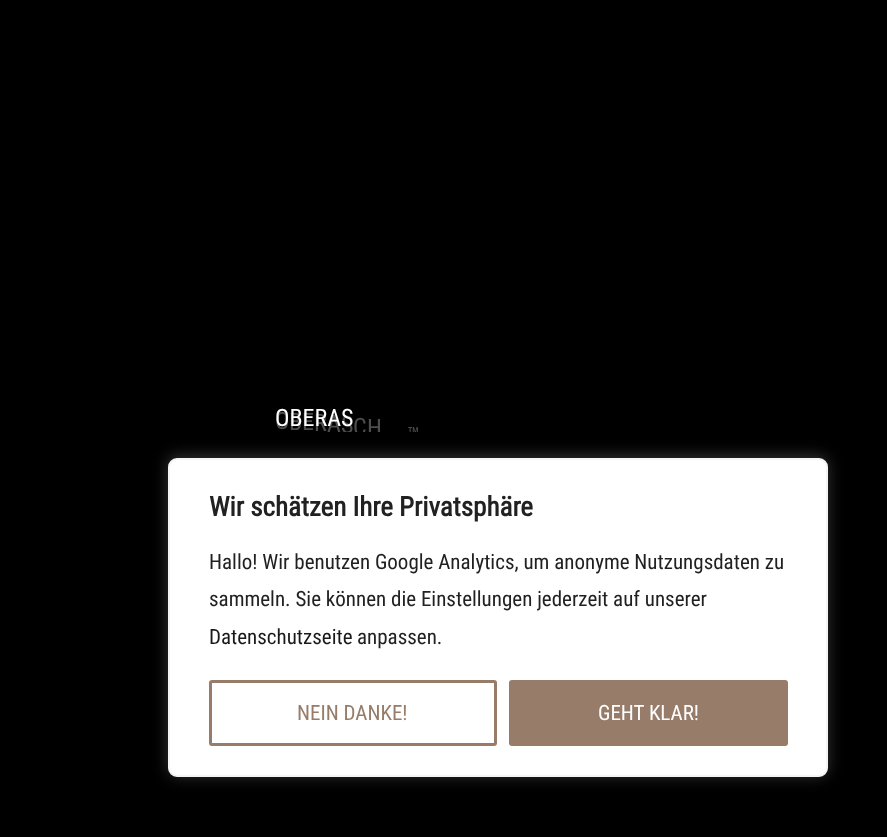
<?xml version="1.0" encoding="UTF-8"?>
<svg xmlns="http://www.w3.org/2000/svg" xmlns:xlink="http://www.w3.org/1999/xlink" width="887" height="837">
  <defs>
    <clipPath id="clip1"><rect x="275" y="405" width="337" height="27" /></clipPath>
  </defs>
  <rect width="100%" height="100%" fill="#000000" />
  <rect x="168" y="456" width="660" height="320" rx="9" fill="#acabab" fill-opacity="0.3" filter="blur(7.5px)" />
  <rect x="169" y="459" width="658" height="317" rx="8" fill="#ffffff" stroke="#f4f4f4" stroke-width="2" />
  <rect x="210.5" y="681.5" width="285" height="63" rx="1.5" fill="none" stroke="#967c69" stroke-width="3" />
  <rect x="510.5" y="681.5" width="276" height="63" rx="1.5" fill="#967c69" stroke="#967c69" stroke-width="3" />
  <text x="275" y="429" style="font-family: Roboto Condensed; font-size: 24px; fill: #4d4d4d">O</text>
  <text x="289" y="430" style="font-family: Roboto Condensed; font-size: 24px; fill: #4d4d4d">BE</text>
  <text x="314" y="431" style="font-family: Roboto Condensed; font-size: 24px; fill: #4d4d4d">R</text>
  <text x="327" y="432" style="font-family: Roboto Condensed; font-size: 24px; fill: #4d4d4d">A</text>
  <g clip-path="url(#clip1)">
    <text x="341" y="433" style="font-family: Roboto Condensed; font-size: 24px; fill: #4d4d4d">S</text>
  </g>
  <text x="275" y="426" style="font-family: Roboto Condensed; font-size: 24px; fill: #ffffff">OBERAS</text>
  <g clip-path="url(#clip1)">
    <text x="353" y="435" style="font-family: Roboto Condensed; font-size: 24px; fill: #4d4d4d">C</text>
    <text x="367" y="436" style="font-family: Roboto Condensed; font-size: 24px; fill: #4d4d4d">H</text>
    <text x="407" y="444" style="font-family: Roboto Condensed; font-size: 24px; fill: #4d4d4d">™</text>
  </g>
  <text x="209" y="516" style="font-family: Roboto Condensed; font-size: 27px; font-weight: bold; fill: #212121">Wir schätzen Ihre Privatsphäre</text>
  <text x="209" y="569" style="font-family: Roboto Condensed; font-size: 21px; fill: #212121">Hallo! Wir benutzen Google Analytics, um anonyme Nutzungsdaten zu</text>
  <text x="209" y="606" style="font-family: Roboto Condensed; font-size: 21px; fill: #212121">sammeln. Sie können die Einstellungen jederzeit auf unserer</text>
  <text x="209" y="644" style="font-family: Roboto Condensed; font-size: 21px; fill: #191919">Datenschutzseite</text>
  <text x="357" y="644" style="font-family: Roboto Condensed; font-size: 21px; fill: #212121">anpassen.</text>
  <text x="297" y="720" style="font-family: Roboto Condensed; font-size: 21px; fill: #967c69">NEIN DANKE!</text>
  <text x="598" y="720" style="font-family: Roboto Condensed; font-size: 21px; fill: #ffffff">GEHT KLAR!</text>
</svg>
